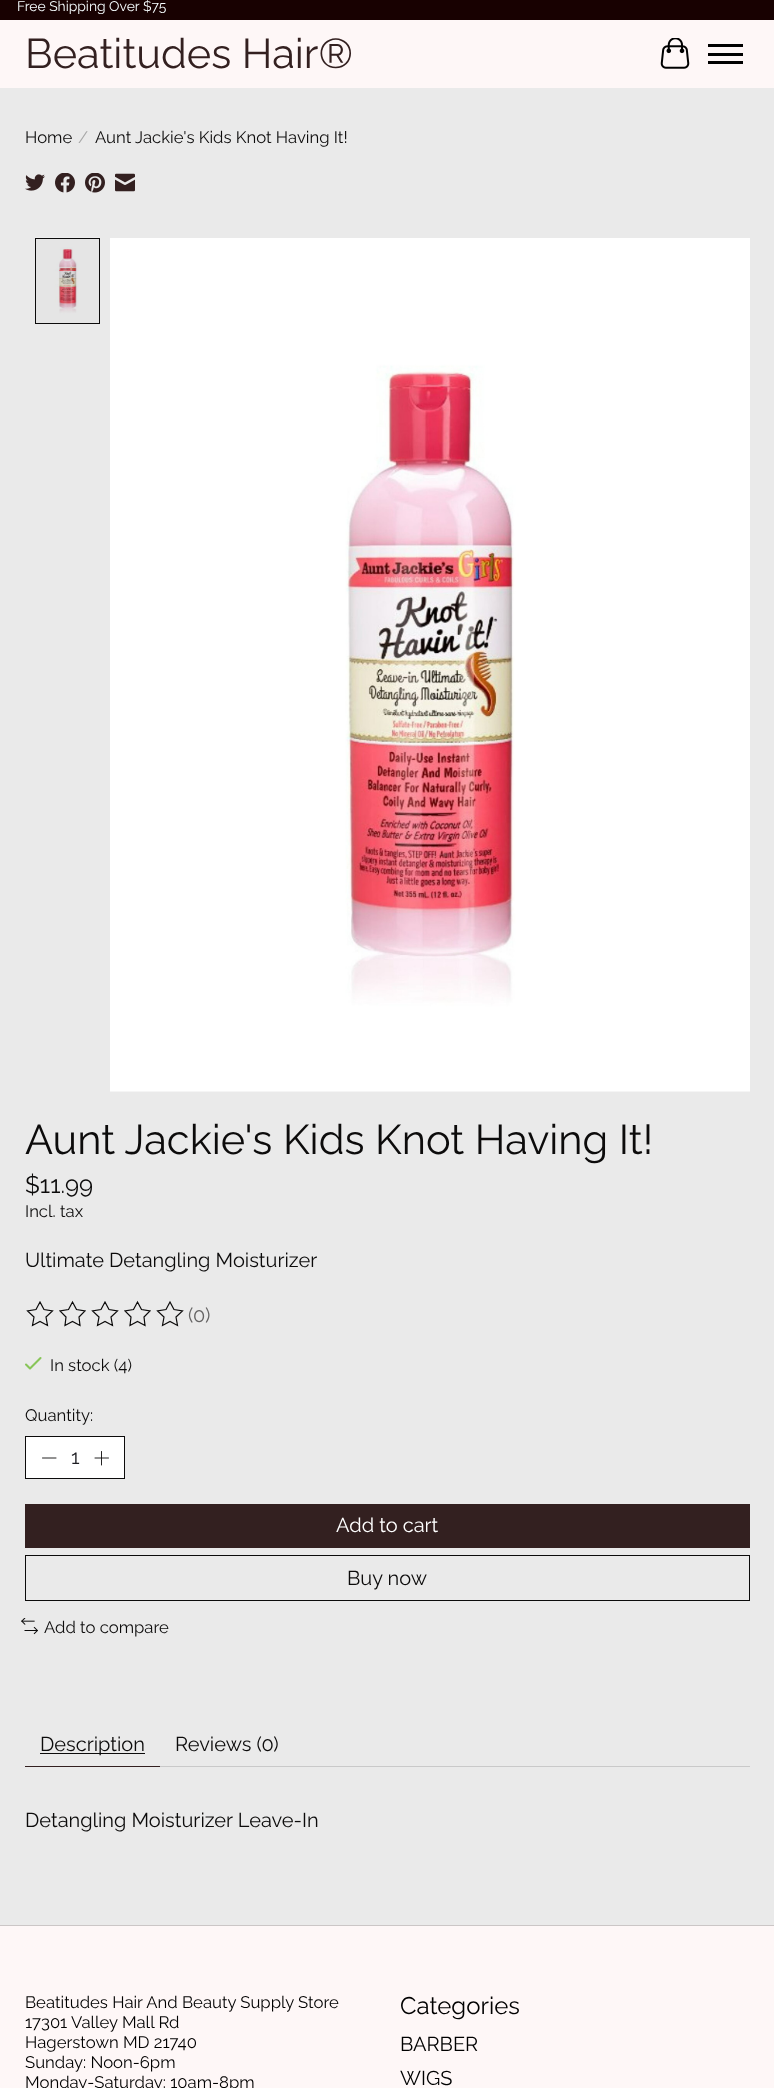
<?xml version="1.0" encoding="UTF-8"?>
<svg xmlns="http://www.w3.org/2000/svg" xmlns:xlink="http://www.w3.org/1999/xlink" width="774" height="2088">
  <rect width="100%" height="100%" fill="#eaeaea" />
  <rect y="20" width="774" height="68" fill="#fef7f7" />
  <rect width="774" height="20" fill="#180101" />
  <image x="660" y="38" width="30" height="31" xlink:href="image1.png" />
  <rect x="708" y="53" width="35" height="3" fill="#000000" />
  <rect x="708" y="44" width="35" height="3" fill="#000000" />
  <rect x="708" y="61" width="35" height="3" fill="#000000" />
  <image x="25" y="174" width="20" height="17" xlink:href="image2.png" />
  <image x="55" y="173" width="20" height="20" xlink:href="image3.png" />
  <image x="85" y="173" width="20" height="20" xlink:href="image4.png" />
  <image x="115" y="173" width="20" height="19" xlink:href="image5.png" />
  <image x="35" y="237" width="65" height="86" xlink:href="image6.png" />
  <rect x="35.5" y="238.5" width="64" height="85" fill="none" stroke="#0c0b0b" />
  <image x="110" y="238" width="640" height="854" xlink:href="image7.png" />
  <path d="M 40 1302 l 4 7.5 l 8.5 1.5 l -6.5 6 l 1.5 8.5 l -7.5 -4 l -7.5 4 l 1.5 -8.5 l -6.5 -6 l 8.5 -1.5 z m 32.5 0 l 4 7.5 l 8.5 1.5 l -6 6 l 1 8.5 l -7.5 -4 l -7.5 4 l 1 -8.5 l -6 -6 l 8.5 -1.5 z" fill="none" stroke="#0c0b0b" stroke-width="1.2" />
  <path d="M 105 1302 l 4 7.5 l 8.5 1.5 l -6.5 6 l 1.5 8.5 l -7.5 -4 l -7.5 4 l 1.5 -8.5 l -6.5 -6 l 8.5 -1.5 z m 32.5 0 l 4 7.5 l 8.5 1.5 l -6 6 l 1 8.5 l -7.5 -4 l -7.5 4 l 1 -8.5 l -6 -6 l 8.5 -1.5 z" fill="none" stroke="#0c0b0b" stroke-width="1.2" />
  <path d="M 170 1302 l 4 7.5 l 8.5 1.5 l -6.5 6 l 1.5 8.5 l -7.5 -4 l -7.5 4 l 1.5 -8.5 l -6.5 -6 l 8.5 -1.5 z" fill="none" stroke="#0c0b0b" stroke-width="1.2" />
  <path d="M 26 1364.5 l 4 4 l 10.5 -10.5" fill="none" stroke="#88c559" stroke-width="2.1" stroke-linecap="round" stroke-linejoin="round" />
  <rect x="25.5" y="1436.5" width="99" height="42" fill="#ffffff" stroke="#0c0b0b" />
  <path d="M 42.5 1458 h 13.5" fill="none" stroke="#0c0b0b" stroke-width="0.9" stroke-linecap="round" stroke-linejoin="round" />
  <path d="M 101.5 1451.5 v 13.5 m -6.5 -7 h 13.5" fill="none" stroke="#0c0b0b" stroke-width="0.9" stroke-linecap="round" stroke-linejoin="round" />
  <rect x="25" y="1504" width="725" height="44" fill="#332020" />
  <rect x="25.5" y="1555.5" width="724" height="45" fill="none" stroke="#0c0b0b" />
  <image x="21" y="1618" width="17" height="17" xlink:href="image8.png" />
  <rect x="25" y="1766" width="135" height="1" fill="#332020" />
  <rect x="40" y="1753" width="105" height="1" fill="#0c0b0b" />
  <rect x="160" y="1766" width="590" height="1" fill="#c9c9c9" />
  <rect y="1926" width="774" height="162" fill="#fef7f7" />
  <rect y="1925" width="774" height="1" fill="#cbc6c6" />
  <text x="17" y="11" style="font-family: Raleway; font-size: 13.9px; fill: #f7feff">Free Shipping Over $75</text>
  <text x="25" y="68" style="font-family: Raleway; font-size: 41.5px; fill: #332020">Beatitudes Hair®</text>
  <text x="25" y="143" style="font-family: Raleway; font-size: 16.7px; fill: #0c0b0b">Home</text>
  <text x="78" y="143" style="font-family: Raleway; font-size: 16.7px; fill: #a7a7a7">/</text>
  <text x="95" y="143" style="font-family: Raleway; font-size: 16.7px; fill: #0c0b0b">Aunt Jackie's Kids Knot Having It!</text>
  <text x="25" y="1154" style="font-family: Raleway; font-size: 41.5px; fill: #0c0b0b">Aunt Jackie's Kids Knot Having It!</text>
  <text x="25" y="1193" style="font-family: Raleway; font-size: 24px; fill: #0c0b0b">$11.99</text>
  <text x="25" y="1217" style="font-family: Raleway; font-size: 16.7px; fill: #0c0b0b">Incl. tax</text>
  <text x="25" y="1267" style="font-family: Raleway; font-size: 20px; fill: #0c0b0b">Ultimate Detangling Moisturizer</text>
  <text x="188" y="1322" style="font-family: Raleway; font-size: 20px; fill: #656464">(0)</text>
  <text x="50" y="1371" style="font-family: Raleway; font-size: 16.7px; fill: #0c0b0b">In stock (4)</text>
  <text x="25" y="1421" style="font-family: Raleway; font-size: 16.7px; fill: #0c0b0b">Quantity:</text>
  <text x="71" y="1464" style="font-family: Raleway; font-size: 20px; fill: #1c1c21">1</text>
  <text x="336" y="1532" style="font-family: Raleway; font-size: 20px; fill: #ffffff">Add to cart</text>
  <text x="347" y="1585" style="font-family: Raleway; font-size: 20px; fill: #0c0b0b">Buy now</text>
  <text x="44" y="1633" style="font-family: Raleway; font-size: 16.7px; fill: #0c0b0b">Add to compare</text>
  <text x="40" y="1751" style="font-family: Raleway; font-size: 20px; fill: #0c0b0b">Description</text>
  <text x="175" y="1751" style="font-family: Raleway; font-size: 20px; fill: #0c0b0b">Reviews (0)</text>
  <text x="25" y="1827" style="font-family: Raleway; font-size: 20px; fill: #0c0b0b">Detangling Moisturizer Leave-In</text>
  <text x="25" y="2008" style="font-family: Raleway; font-size: 16.7px; fill: #000000">Beatitudes Hair And Beauty Supply Store</text>
  <text x="25" y="2028" style="font-family: Raleway; font-size: 16.7px; fill: #000000">17301 Valley Mall Rd</text>
  <text x="25" y="2048" style="font-family: Raleway; font-size: 16.7px; fill: #000000">Hagerstown MD 21740</text>
  <text x="25" y="2068" style="font-family: Raleway; font-size: 16.7px; fill: #000000">Sunday: Noon-6pm</text>
  <text x="25" y="2088" style="font-family: Raleway; font-size: 16.7px; fill: #000000">Monday-Saturday: 10am-8pm</text>
  <text x="400" y="2014" style="font-family: Raleway; font-size: 24px; fill: #000000">Categories</text>
  <text x="400" y="2051" style="font-family: Raleway; font-size: 20px; fill: #000000">BARBER</text>
  <text x="400" y="2085" style="font-family: Raleway; font-size: 20px; fill: #000000">WIGS</text>
</svg>
